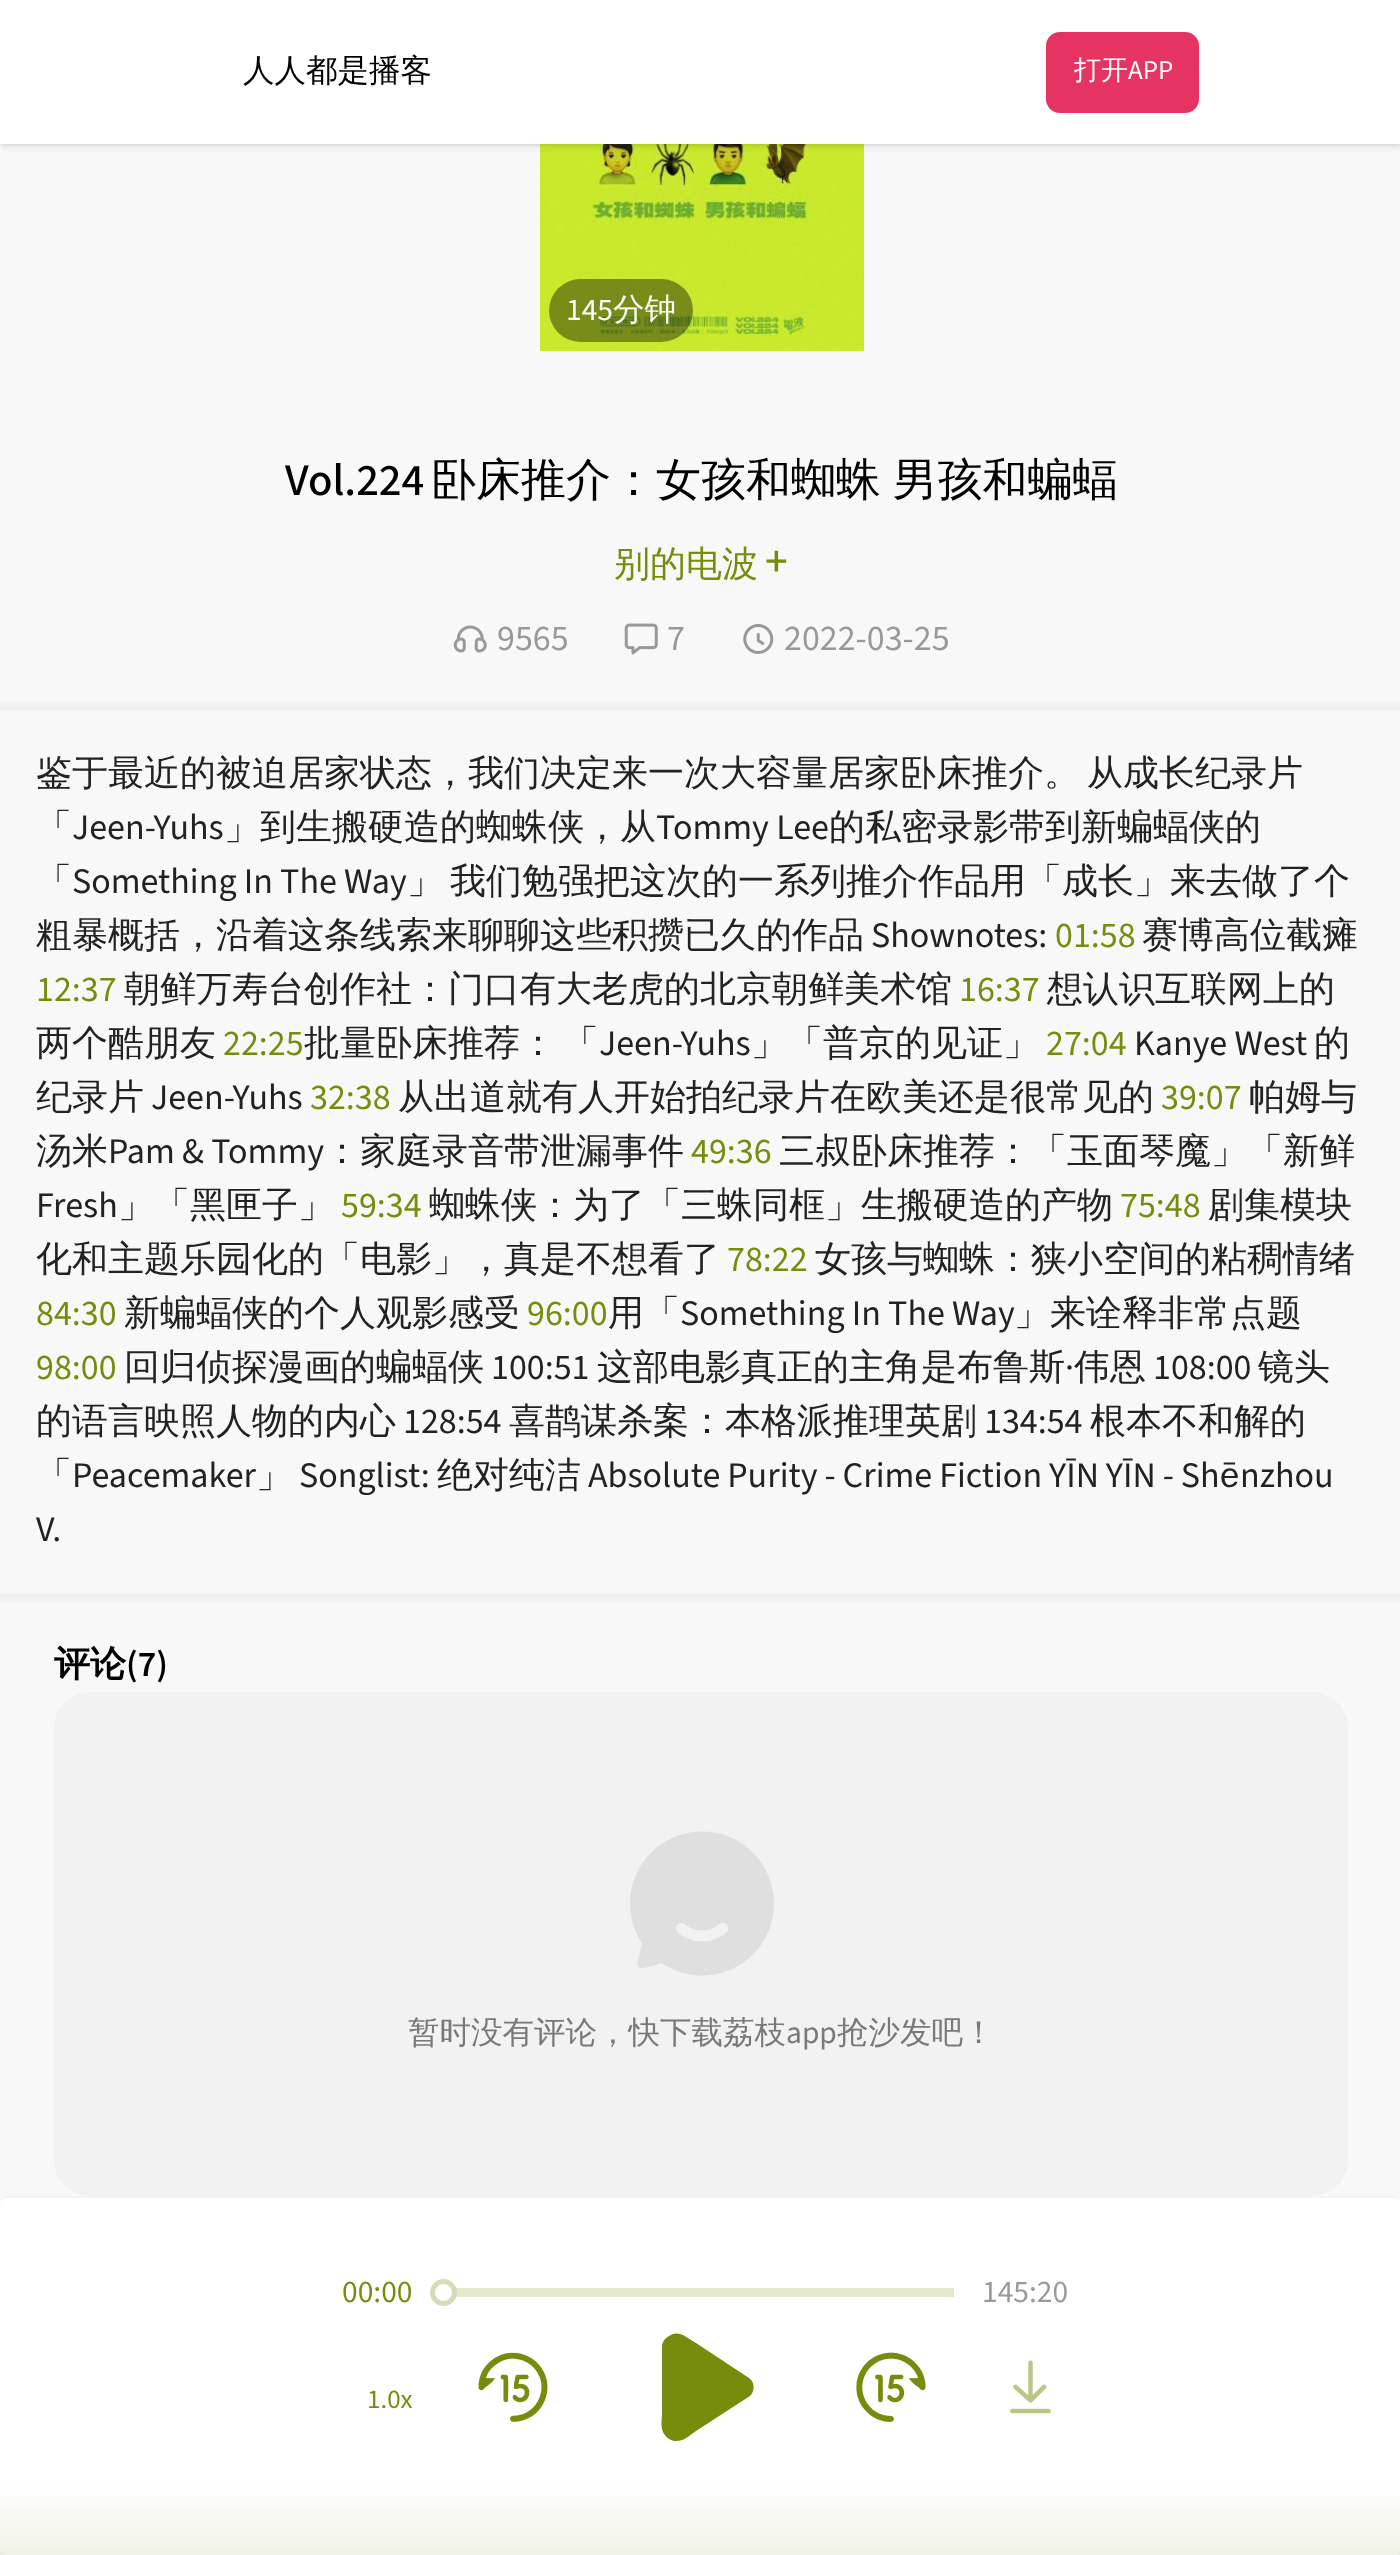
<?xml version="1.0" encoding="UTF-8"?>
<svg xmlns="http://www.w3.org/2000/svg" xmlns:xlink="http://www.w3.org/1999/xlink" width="1400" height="2555">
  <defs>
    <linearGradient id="g1" gradientUnits="userSpaceOnUse" x1="701" y1="2484" x2="701" y2="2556"><stop offset="0" stop-color="#ffffff" /><stop offset="1" stop-color="#ffffff" stop-opacity="0" /></linearGradient>
  </defs>
  <rect width="100%" height="100%" fill="#f8f8f8" />
  <image x="540" y="144" width="324" height="207" xlink:href="image1.png" />
  <rect x="2" y="5" width="1398" height="139" fill="#000000" fill-opacity="0.1" filter="blur(2px)" />
  <rect y="2" width="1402" height="144" fill="#000000" fill-opacity="0.1" filter="blur(3.5px)" />
  <rect width="1400" height="144" fill="#ffffff" />
  <rect x="1046" y="32" width="153" height="81" rx="14" fill="#e63462" />
  <rect x="549" y="279" width="144" height="63" rx="31.5" fill="#000000" fill-opacity="0.4" />
  <image x="453" y="625" width="34" height="28" xlink:href="image2.png" />
  <image x="624" y="623" width="34" height="32" xlink:href="image3.png" />
  <image x="743" y="624" width="31" height="30" xlink:href="image4.png" />
  <rect y="702" width="1400" height="9" fill="#f2f2f2" />
  <rect y="1593" width="1400" height="9" fill="#f2f2f2" />
  <rect x="54" y="1692" width="1294" height="504" rx="36" fill="#f2f2f2" />
  <image x="630" y="1831" width="144" height="145" xlink:href="image5.png" />
  <path d="M 9 2198 h 1384 c 5 0 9 3 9 7 v 342 c 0 5 -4 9 -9 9 h -1384 c -5 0 -9 -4 -9 -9 v -342 c 0 -4 4 -7 9 -7 z" fill="#ffffff" />
  <rect x="5" y="2196" width="1392" height="2" fill="#f3f4f6" />
  <rect x="456" y="2288" width="498" height="9" fill="#e4e8cf" />
  <circle cx="443.5" cy="2292.5" r="13.5" fill="#ffffff" />
  <circle cx="443.5" cy="2292.5" r="11" fill="none" stroke="#778c0d" stroke-opacity="0.3" stroke-width="5" />
  <image x="478" y="2352" width="70" height="70" xlink:href="image6.png" />
  <path d="M 674 2441 c -4 -1 -7 -3 -10 -7 c -4 -6 -2 -15 -2 -21 v -68 c 1 -4 3 -7 7 -9 c 10 -7 18 2 27 7 l 53 35 c 6 4 6 13 1 18 l -54 35 c -7 5 -13 11 -22 10 z" fill="#778c0d" />
  <image x="856" y="2352" width="70" height="70" xlink:href="image7.png" />
  <image x="1010" y="2360" width="41" height="54" xlink:href="image8.png" />
  <rect y="2484" width="1400" height="71" fill="#778c0d" fill-opacity="0.1" />
  <rect y="2484" width="1400" height="65" fill="url(#g1)" />
  <text x="243" y="81" style="font-family: WenQuanYi Zen Hei; font-size: 31.5px; font-weight: 500; fill: #000000">人人都是播客</text>
  <text x="1074" y="79" style="font-family: WenQuanYi Zen Hei; font-size: 27px; font-weight: 500; fill: #ffffff">打开</text>
  <text x="1128" y="79" style="font-family: 'Source Sans 3'; font-size: 27px; fill: #ffffff">APP</text>
  <text x="566" y="320" style="font-family: 'Source Sans 3'; font-size: 31.5px; fill: #ffffff">145</text>
  <text x="613" y="320" style="font-family: WenQuanYi Zen Hei; font-size: 31.5px; font-weight: 500; fill: #ffffff">分钟</text>
  <text x="285" y="495" style="font-family: 'Source Sans 3'; font-size: 45px; font-weight: 500; fill: #000000">Vol.224</text>
  <text x="431" y="495" word-spacing="-2" style="font-family: WenQuanYi Zen Hei; font-size: 45px; font-weight: 500; fill: #000000">卧床推介：女孩和蜘蛛 男孩和蝙蝠</text>
  <text x="614" y="576" style="font-family: WenQuanYi Zen Hei; font-size: 36px; font-weight: 500; fill: #778c0d">别的电波</text>
  <text x="765" y="576" style="font-family: 'Source Sans 3'; font-size: 45px; font-weight: 500; fill: #778c0d">+</text>
  <text x="497" y="650" style="font-family: 'Source Sans 3'; font-size: 36px; fill: #999999">9565</text>
  <text x="667" y="650" style="font-family: 'Source Sans 3'; font-size: 36px; fill: #999999">7</text>
  <text x="784" y="650" style="font-family: 'Source Sans 3'; font-size: 36px; fill: #999999">2022-03-25</text>
  <text x="36" y="785" style="font-family: WenQuanYi Zen Hei; font-size: 36px; font-weight: 500; fill: #222222">鉴于最近的被迫居家状态，我们决定来一次大容量居家卧床推介。</text>
  <text x="1087" y="785" style="font-family: WenQuanYi Zen Hei; font-size: 36px; font-weight: 500; fill: #222222">从成长纪录片</text>
  <text x="36" y="839" style="font-family: WenQuanYi Zen Hei; font-size: 36px; font-weight: 500; fill: #222222">「</text>
  <text x="72" y="839" style="font-family: 'Source Sans 3'; font-size: 36px; fill: #222222">Jeen-Yuhs</text>
  <text x="224" y="839" style="font-family: WenQuanYi Zen Hei; font-size: 36px; font-weight: 500; fill: #222222">」到生搬硬造的蜘蛛侠，从</text>
  <text x="656" y="839" style="font-family: 'Source Sans 3'; font-size: 36px; fill: #222222">Tommy Lee</text>
  <text x="829" y="839" style="font-family: WenQuanYi Zen Hei; font-size: 36px; font-weight: 500; fill: #222222">的私密录影带到新蝙蝠侠的</text>
  <text x="36" y="893" style="font-family: WenQuanYi Zen Hei; font-size: 36px; font-weight: 500; fill: #222222">「</text>
  <text x="72" y="893" style="font-family: 'Source Sans 3'; font-size: 36px; fill: #222222">Something In The Way</text>
  <text x="407" y="893" style="font-family: WenQuanYi Zen Hei; font-size: 36px; font-weight: 500; fill: #222222">」</text>
  <text x="450" y="893" style="font-family: WenQuanYi Zen Hei; font-size: 36px; font-weight: 500; fill: #222222">我们勉强把这次的一系列推介作品用「成长」来去做了个</text>
  <text x="36" y="947" style="font-family: WenQuanYi Zen Hei; font-size: 36px; font-weight: 500; fill: #222222">粗暴概括，沿着这条线索来聊聊这些积攒已久的作品</text>
  <text x="871" y="947" style="font-family: 'Source Sans 3'; font-size: 36px; fill: #222222">Shownotes:</text>
  <text x="1055" y="947" style="font-family: 'Source Sans 3'; font-size: 36px; fill: #778c0d">01:58</text>
  <text x="1142" y="947" style="font-family: WenQuanYi Zen Hei; font-size: 36px; font-weight: 500; fill: #222222">赛博高位截瘫</text>
  <text x="36" y="1001" style="font-family: 'Source Sans 3'; font-size: 36px; fill: #778c0d">12:37</text>
  <text x="124" y="1001" style="font-family: WenQuanYi Zen Hei; font-size: 36px; font-weight: 500; fill: #222222">朝鲜万寿台创作社：门口有大老虎的北京朝鲜美术馆</text>
  <text x="959" y="1001" style="font-family: 'Source Sans 3'; font-size: 36px; fill: #778c0d">16:37</text>
  <text x="1047" y="1001" style="font-family: WenQuanYi Zen Hei; font-size: 36px; font-weight: 500; fill: #222222">想认识互联网上的</text>
  <text x="36" y="1055" style="font-family: WenQuanYi Zen Hei; font-size: 36px; font-weight: 500; fill: #222222">两个酷朋友</text>
  <text x="223" y="1055" style="font-family: 'Source Sans 3'; font-size: 36px; fill: #778c0d">22:25</text>
  <text x="304" y="1055" word-spacing="-4" style="font-family: WenQuanYi Zen Hei; font-size: 36px; font-weight: 500; fill: #222222">批量卧床推荐： 「</text>
  <text x="599" y="1055" style="font-family: 'Source Sans 3'; font-size: 36px; fill: #222222">Jeen-Yuhs</text>
  <text x="751" y="1055" style="font-family: WenQuanYi Zen Hei; font-size: 36px; font-weight: 500; fill: #222222">」「普京的见证」</text>
  <text x="1046" y="1055" style="font-family: 'Source Sans 3'; font-size: 36px; fill: #778c0d">27:04</text>
  <text x="1134" y="1055" style="font-family: 'Source Sans 3'; font-size: 36px; fill: #222222">Kanye West</text>
  <text x="1314" y="1055" style="font-family: WenQuanYi Zen Hei; font-size: 36px; font-weight: 500; fill: #222222">的</text>
  <text x="36" y="1109" style="font-family: WenQuanYi Zen Hei; font-size: 36px; font-weight: 500; fill: #222222">纪录片</text>
  <text x="151" y="1109" style="font-family: 'Source Sans 3'; font-size: 36px; fill: #222222">Jeen-Yuhs</text>
  <text x="310" y="1109" style="font-family: 'Source Sans 3'; font-size: 36px; fill: #778c0d">32:38</text>
  <text x="398" y="1109" style="font-family: WenQuanYi Zen Hei; font-size: 36px; font-weight: 500; fill: #222222">从出道就有人开始拍纪录片在欧美还是很常见的</text>
  <text x="1161" y="1109" style="font-family: 'Source Sans 3'; font-size: 36px; fill: #778c0d">39:07</text>
  <text x="1249" y="1109" style="font-family: WenQuanYi Zen Hei; font-size: 36px; font-weight: 500; fill: #222222">帕姆与</text>
  <text x="36" y="1163" style="font-family: WenQuanYi Zen Hei; font-size: 36px; font-weight: 500; fill: #222222">汤米</text>
  <text x="108" y="1163" style="font-family: 'Source Sans 3'; font-size: 36px; fill: #222222">Pam &amp; Tommy</text>
  <text x="324" y="1163" style="font-family: WenQuanYi Zen Hei; font-size: 36px; font-weight: 500; fill: #222222">：家庭录音带泄漏事件</text>
  <text x="691" y="1163" style="font-family: 'Source Sans 3'; font-size: 36px; fill: #778c0d">49:36</text>
  <text x="779" y="1163" style="font-family: WenQuanYi Zen Hei; font-size: 36px; font-weight: 500; fill: #222222">三叔卧床推荐：「玉面琴魔」「新鲜</text>
  <text x="36" y="1217" style="font-family: 'Source Sans 3'; font-size: 36px; fill: #222222">Fresh</text>
  <text x="118" y="1217" style="font-family: WenQuanYi Zen Hei; font-size: 36px; font-weight: 500; fill: #222222">」「黑匣子」</text>
  <text x="341" y="1217" style="font-family: 'Source Sans 3'; font-size: 36px; fill: #778c0d">59:34</text>
  <text x="429" y="1217" style="font-family: WenQuanYi Zen Hei; font-size: 36px; font-weight: 500; fill: #222222">蜘蛛侠：为了「三蛛同框」生搬硬造的产物</text>
  <text x="1120" y="1217" style="font-family: 'Source Sans 3'; font-size: 36px; fill: #778c0d">75:48</text>
  <text x="1208" y="1217" style="font-family: WenQuanYi Zen Hei; font-size: 36px; font-weight: 500; fill: #222222">剧集模块</text>
  <text x="36" y="1271" style="font-family: WenQuanYi Zen Hei; font-size: 36px; font-weight: 500; fill: #222222">化和主题乐园化的「电影」，真是不想看了</text>
  <text x="727" y="1271" style="font-family: 'Source Sans 3'; font-size: 36px; fill: #778c0d">78:22</text>
  <text x="815" y="1271" style="font-family: WenQuanYi Zen Hei; font-size: 36px; font-weight: 500; fill: #222222">女孩与蜘蛛：狭小空间的粘稠情绪</text>
  <text x="36" y="1325" style="font-family: 'Source Sans 3'; font-size: 36px; fill: #778c0d">84:30</text>
  <text x="124" y="1325" style="font-family: WenQuanYi Zen Hei; font-size: 36px; font-weight: 500; fill: #222222">新蝙蝠侠的个人观影感受</text>
  <text x="527" y="1325" style="font-family: 'Source Sans 3'; font-size: 36px; fill: #778c0d">96:00</text>
  <text x="608" y="1325" style="font-family: WenQuanYi Zen Hei; font-size: 36px; font-weight: 500; fill: #222222">用「</text>
  <text x="680" y="1325" style="font-family: 'Source Sans 3'; font-size: 36px; fill: #222222">Something In The Way</text>
  <text x="1014" y="1325" style="font-family: WenQuanYi Zen Hei; font-size: 36px; font-weight: 500; fill: #222222">」来诠释非常点题</text>
  <text x="36" y="1379" style="font-family: 'Source Sans 3'; font-size: 36px; fill: #778c0d">98:00</text>
  <text x="124" y="1379" style="font-family: WenQuanYi Zen Hei; font-size: 36px; font-weight: 500; fill: #222222">回归侦探漫画的蝙蝠侠</text>
  <text x="491" y="1379" style="font-family: 'Source Sans 3'; font-size: 36px; fill: #222222">100:51</text>
  <text x="597" y="1379" style="font-family: WenQuanYi Zen Hei; font-size: 36px; font-weight: 500; fill: #222222">这部电影真正的主角是布鲁斯</text>
  <text x="1065" y="1379" style="font-family: 'Source Sans 3'; font-size: 36px; fill: #222222">·</text>
  <text x="1074" y="1379" style="font-family: WenQuanYi Zen Hei; font-size: 36px; font-weight: 500; fill: #222222">伟恩</text>
  <text x="1153" y="1379" style="font-family: 'Source Sans 3'; font-size: 36px; fill: #222222">108:00</text>
  <text x="1258" y="1379" style="font-family: WenQuanYi Zen Hei; font-size: 36px; font-weight: 500; fill: #222222">镜头</text>
  <text x="36" y="1433" style="font-family: WenQuanYi Zen Hei; font-size: 36px; font-weight: 500; fill: #222222">的语言映照人物的内心</text>
  <text x="403" y="1433" style="font-family: 'Source Sans 3'; font-size: 36px; fill: #222222">128:54</text>
  <text x="509" y="1433" style="font-family: WenQuanYi Zen Hei; font-size: 36px; font-weight: 500; fill: #222222">喜鹊谋杀案：本格派推理英剧</text>
  <text x="984" y="1433" style="font-family: 'Source Sans 3'; font-size: 36px; fill: #222222">134:54</text>
  <text x="1090" y="1433" style="font-family: WenQuanYi Zen Hei; font-size: 36px; font-weight: 500; fill: #222222">根本不和解的</text>
  <text x="36" y="1487" style="font-family: WenQuanYi Zen Hei; font-size: 36px; font-weight: 500; fill: #222222">「</text>
  <text x="72" y="1487" style="font-family: 'Source Sans 3'; font-size: 36px; fill: #222222">Peacemaker</text>
  <text x="256" y="1487" style="font-family: WenQuanYi Zen Hei; font-size: 36px; font-weight: 500; fill: #222222">」</text>
  <text x="299" y="1487" style="font-family: 'Source Sans 3'; font-size: 36px; fill: #222222">Songlist:</text>
  <text x="437" y="1487" style="font-family: WenQuanYi Zen Hei; font-size: 36px; font-weight: 500; fill: #222222">绝对纯洁</text>
  <text x="588" y="1487" word-spacing="-0.25" style="font-family: 'Source Sans 3'; font-size: 36px; fill: #222222">Absolute Purity - Crime Fiction YĪN YĪN - Sh</text>
  <text x="1220" y="1487" style="font-family: WenQuanYi Zen Hei; font-size: 36px; font-weight: 500; fill: #222222">ē</text>
  <text x="1240" y="1487" style="font-family: 'Source Sans 3'; font-size: 36px; fill: #222222">nzhou</text>
  <text x="36" y="1541" style="font-family: 'Source Sans 3'; font-size: 36px; fill: #222222">V.</text>
  <text x="54" y="1676" style="font-family: WenQuanYi Zen Hei; font-size: 36px; font-weight: bold; fill: #000000">评论</text>
  <text x="126" y="1676" style="font-family: 'Source Sans 3'; font-size: 36px; font-weight: 600; fill: #000000">(7)</text>
  <text x="408" y="2043" style="font-family: WenQuanYi Zen Hei; font-size: 31.5px; font-weight: 500; fill: #797979">暂时没有评论，快下载荔枝</text>
  <text x="786" y="2043" style="font-family: 'Source Sans 3'; font-size: 31.5px; fill: #797979">app</text>
  <text x="837" y="2043" style="font-family: WenQuanYi Zen Hei; font-size: 31.5px; font-weight: 500; fill: #797979">抢沙发吧！</text>
  <text x="342" y="2302" style="font-family: 'Source Sans 3'; font-size: 31.5px; fill: #778c0d">00:00</text>
  <text x="982" y="2302" style="font-family: 'Source Sans 3'; font-size: 31.5px; fill: #999999">145:20</text>
  <text x="367" y="2408" style="font-family: 'Source Sans 3'; font-size: 27px; fill: #778c0d">1.0x</text>
</svg>
